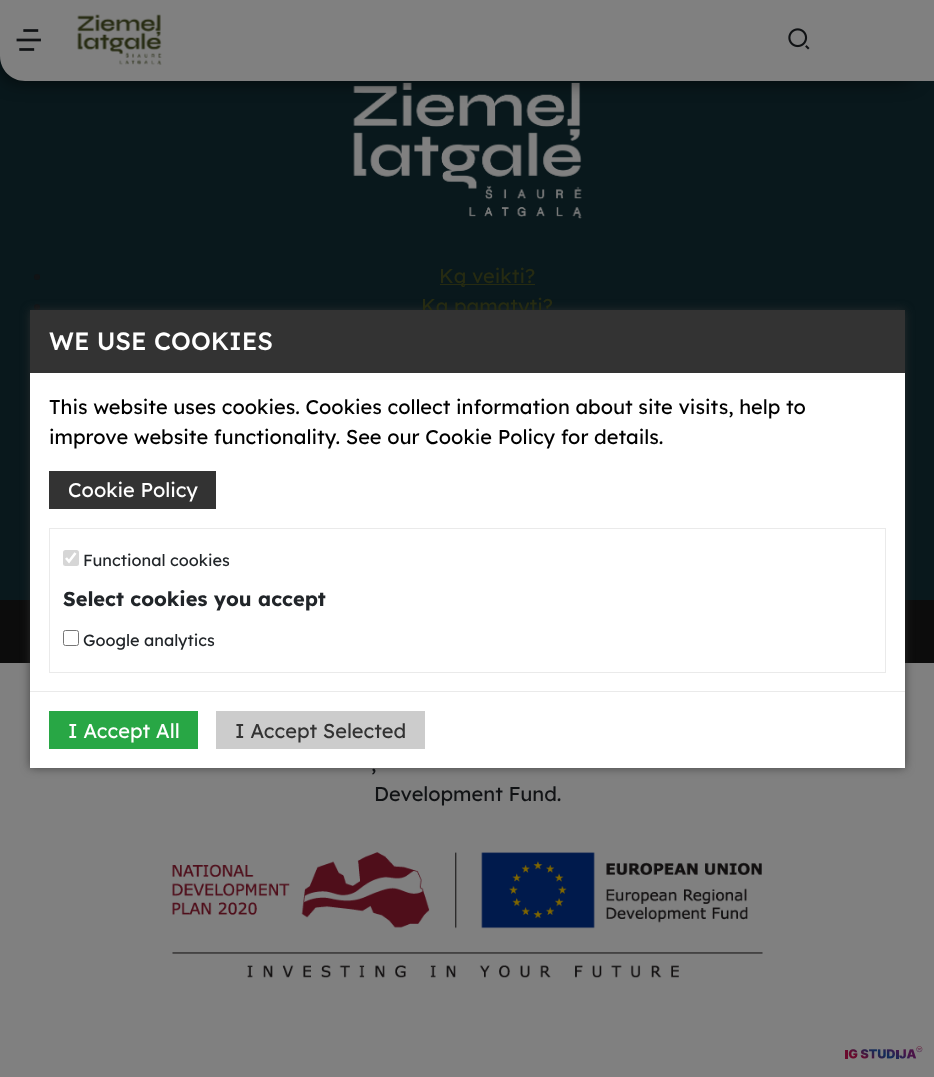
<?xml version="1.0" encoding="UTF-8"?>
<svg xmlns="http://www.w3.org/2000/svg" xmlns:xlink="http://www.w3.org/1999/xlink" width="934" height="1077">
  <rect width="100%" height="100%" fill="#808080" />
  <rect y="56" width="934" height="544" fill="#09181c" />
  <image x="353" y="82" width="229" height="137" xlink:href="image4.png" />
  <rect x="4" y="23" width="910" height="56" rx="13" fill="#000000" fill-opacity="0.75" filter="blur(10px)" />
  <path d="M 0 0 h 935 v 81 h -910 c -14 0 -25 -11 -25 -25 z" fill="#808080" />
  <image x="16" y="29" width="25" height="22" xlink:href="image1.png" />
  <image x="77" y="14" width="85" height="51" xlink:href="image2.png" />
  <image x="788" y="28" width="22" height="22" xlink:href="image3.png" />
  <circle cx="37" cy="277" r="3" fill="#111315" />
  <rect x="440" y="284" width="95" height="1" fill="#262b12" />
  <circle cx="37" cy="307" r="3" fill="#111315" />
  <rect y="600" width="934" height="63" fill="#0c0c0c" />
  <image x="172" y="852" width="591" height="126" xlink:href="image5.png" />
  <image x="845" y="1046" width="78" height="13" xlink:href="image6.png" />
  <rect x="30" y="310" width="875" height="458" fill="#323232" fill-opacity="0.75" filter="blur(5px)" />
  <rect x="30" y="373" width="875" height="395" fill="#ffffff" />
  <rect x="49" y="471" width="167" height="38" fill="#333333" />
  <rect x="49.5" y="528.5" width="836" height="144" fill="none" stroke="#eaeaea" />
  <rect x="63" y="550" width="16" height="16" rx="2.5" fill="#d6d6d6" />
  <path d="M 66 558 l 3 3.5 l 6.5 -8.5" fill="none" stroke="#ffffff" stroke-width="2.6" />
  <rect x="63.5" y="630.5" width="15" height="15" rx="2" fill="none" stroke="#767676" />
  <rect x="30" y="691" width="875" height="1" fill="#eaeaea" />
  <rect x="49" y="711" width="149" height="38" fill="#28a745" />
  <rect x="216" y="711" width="209" height="38" fill="#cccccc" />
  <text x="439" y="283" style="font-family: Lexend Deca; font-size: 20px; fill: #262b12">Ką veikti?</text>
  <text x="421" y="313" style="font-family: Lexend Deca; font-size: 20px; fill: #262b12">Ką pamatyti?</text>
  <text x="371" y="771" style="font-family: Lexend Deca; font-size: 20px; fill: #111315">,</text>
  <text x="374" y="801" style="font-family: Lexend Deca; font-size: 20px; fill: #111315">Development Fund.</text>
  <rect x="30" y="310" width="875" height="63" fill="#333333" />
  <text x="49" y="350" style="font-family: Lexend Deca; font-size: 25px; font-weight: 500; fill: #ffffff">WE USE COOKIES</text>
  <text x="49" y="414" style="font-family: Lexend Deca; font-size: 20px; fill: #000000">This website uses cookies. Cookies collect information about site visits, help to</text>
  <text x="49" y="444" style="font-family: Lexend Deca; font-size: 20px; fill: #000000">improve website functionality. See our Cookie Policy for details.</text>
  <text x="68" y="497" style="font-family: Lexend Deca; font-size: 20px; fill: #ffffff">Cookie Policy</text>
  <text x="83" y="566" style="font-family: Lexend Deca; font-size: 16.25px; fill: #212529">Functional cookies</text>
  <text x="63" y="606" style="font-family: Lexend Deca; font-size: 20px; font-weight: bold; fill: #212529">Select cookies you accept</text>
  <text x="83" y="646" style="font-family: Lexend Deca; font-size: 16.25px; fill: #212529">Google analytics</text>
  <text x="68" y="738" style="font-family: Lexend Deca; font-size: 20px; fill: #ffffff">I Accept All</text>
  <text x="235" y="738" style="font-family: Lexend Deca; font-size: 20px; fill: #333333">I Accept Selected</text>
</svg>
